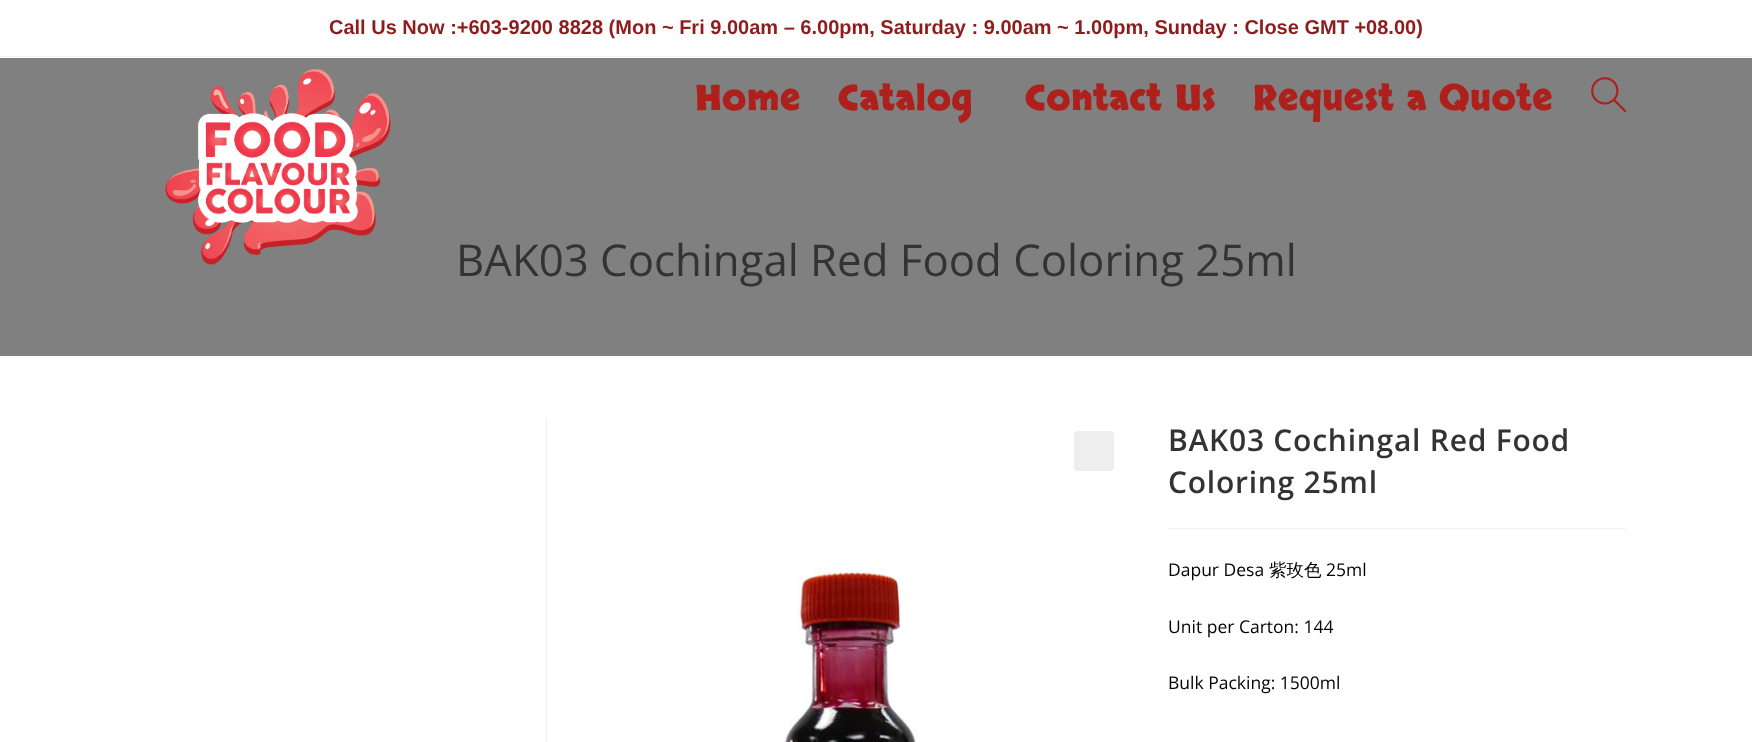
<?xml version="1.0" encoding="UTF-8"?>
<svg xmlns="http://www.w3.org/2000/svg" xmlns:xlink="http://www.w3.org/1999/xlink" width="1752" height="742">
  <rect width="100%" height="100%" fill="#ffffff" />
  <rect y="56" width="1752" height="1" fill="#f1f1f1" />
  <rect y="58" width="1752" height="298" fill="#808080" />
  <image x="165" y="68" width="226" height="197" xlink:href="image1.png" />
  <image x="1591" y="77" width="36" height="36" xlink:href="image2.png" />
  <rect x="546" y="419" width="1" height="323" fill="#f1f1f1" />
  <rect x="1074" y="431" width="40" height="40" rx="4" fill="#eeeeee" />
  <image x="783" y="568" width="133" height="174" xlink:href="image3.png" />
  <rect x="1168" y="528" width="458" height="1" fill="#f1f1f1" />
  <text x="329" y="34" style="font-family: Liberation Sans; font-size: 20px; font-weight: bold; fill: #8e1c1c">Call Us Now :+603-9200 8828 (Mon ~ Fri 9.00am – 6.00pm, Saturday : 9.00am ~ 1.00pm, Sunday : Close GMT +08.00)</text>
  <text x="695" y="110" style="font-family: Skranji; font-size: 35px; font-weight: bold; letter-spacing: 0.75px; fill: #ad201b">Home</text>
  <text x="838" y="110" style="font-family: Skranji; font-size: 35px; font-weight: bold; letter-spacing: 0.75px; fill: #ad201b">Catalog</text>
  <text x="1025" y="110" style="font-family: Skranji; font-size: 35px; font-weight: bold; letter-spacing: 0.75px; fill: #ad201b">Contact Us</text>
  <text x="1253" y="110" style="font-family: Skranji; font-size: 35px; font-weight: bold; letter-spacing: 0.75px; fill: #ad201b">Request a Quote</text>
  <text x="456" y="276" style="font-family: Open Sans; font-size: 43.75px; fill: #333333">BAK03 Cochingal Red Food Coloring 25ml</text>
  <text x="1168" y="451" style="font-family: Open Sans; font-size: 30px; font-weight: 600; letter-spacing: 0.75px; fill: #333333">BAK03 Cochingal Red Food</text>
  <text x="1168" y="493" style="font-family: Open Sans; font-size: 30px; font-weight: 600; letter-spacing: 0.75px; fill: #333333">Coloring 25ml</text>
  <text x="1168" y="576" style="font-family: Open Sans; font-size: 17.5px; fill: #020202">Dapur Desa</text>
  <text x="1269" y="576" style="font-family: WenQuanYi Zen Hei; font-size: 17.5px; font-weight: 500; fill: #020202">紫玫色</text>
  <text x="1326" y="576" style="font-family: Open Sans; font-size: 17.5px; fill: #020202">25ml</text>
  <text x="1168" y="633" style="font-family: Open Sans; font-size: 17.5px; fill: #020202">Unit per Carton: 144</text>
  <text x="1168" y="689" style="font-family: Open Sans; font-size: 17.5px; fill: #020202">Bulk Packing: 1500ml</text>
</svg>
